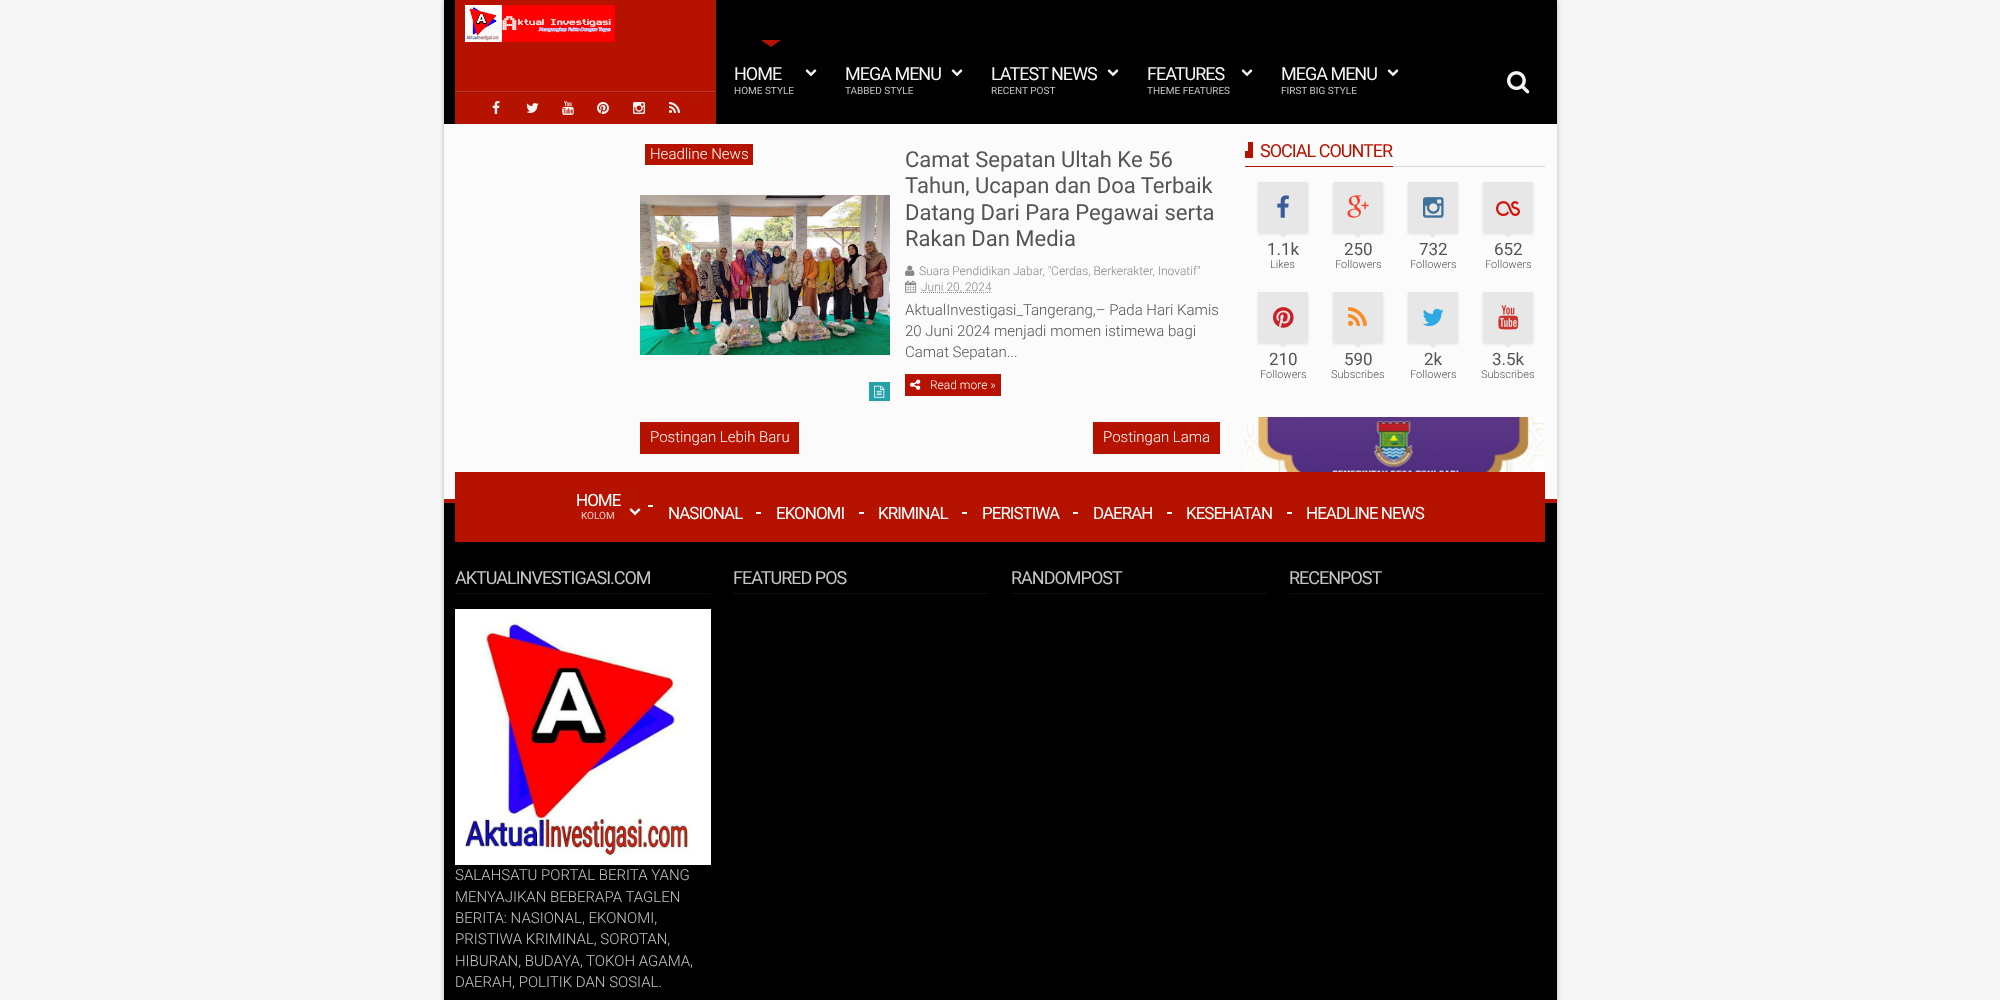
<?xml version="1.0" encoding="UTF-8"?>
<svg xmlns="http://www.w3.org/2000/svg" xmlns:xlink="http://www.w3.org/1999/xlink" width="2000" height="1000">
  <rect width="100%" height="100%" fill="#f6f6f6" />
  <rect x="444" width="1113" height="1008" fill="#000000" fill-opacity="0.25" filter="blur(2.5px)" />
  <rect x="444" width="1113" height="124" fill="#000000" />
  <rect x="455" width="261" height="124" fill="#b51200" />
  <image x="465" y="5" width="150" height="37" xlink:href="image1.png" />
  <rect x="455" y="91" width="261" height="1" fill="#c03626" />
  <rect x="455" y="92" width="261" height="1" fill="#a11000" />
  <image x="492" y="101" width="8" height="13" xlink:href="image2.png" />
  <image x="526" y="103" width="13" height="10" xlink:href="image3.png" />
  <image x="562" y="101" width="12" height="14" xlink:href="image4.png" />
  <image x="597" y="102" width="12" height="12" xlink:href="image5.png" />
  <image x="633" y="102" width="12" height="12" xlink:href="image6.png" />
  <image x="669" y="102" width="11" height="11" xlink:href="image7.png" />
  <path d="M 761 40 h 20 l -10 7 z" fill="#b51200" />
  <image x="805" y="69" width="12" height="8" xlink:href="image8.png" />
  <image x="951" y="69" width="12" height="8" xlink:href="image8.png" />
  <image x="1107" y="69" width="12" height="8" xlink:href="image8.png" />
  <image x="1241" y="69" width="12" height="8" xlink:href="image8.png" />
  <image x="1387" y="69" width="12" height="8" xlink:href="image8.png" />
  <image x="1507" y="71" width="23" height="23" xlink:href="image9.png" />
  <rect x="444" y="124" width="1113" height="375" fill="#fbfbfb" />
  <rect x="645" y="144" width="108" height="21" fill="#b51200" />
  <image x="640" y="195" width="250" height="160" xlink:href="image10.png" />
  <rect x="869" y="382" width="21" height="19" fill="#24a1a9" />
  <image x="874" y="385" width="11" height="13" xlink:href="image11.png" />
  <image x="905" y="265" width="10" height="11" xlink:href="image12.png" />
  <image x="905" y="280" width="12" height="13" xlink:href="image13.png" />
  <path d="M 921 292.5 h 70.5" fill="none" stroke="#868686" stroke-dasharray="1 1" />
  <rect x="905" y="374" width="96" height="22" fill="#b51200" />
  <image x="910" y="379" width="11" height="11" xlink:href="image14.png" />
  <rect x="640" y="422" width="159" height="32" fill="#b51200" />
  <rect x="1093" y="422" width="127" height="32" fill="#b51200" />
  <rect x="1393" y="166" width="152" height="1" fill="#d9d9d9" />
  <rect x="1245" y="142" width="8" height="16" fill="#b51200" />
  <rect x="1245" y="141" width="3" height="10" fill="#fbfbfb" />
  <rect x="1245" y="166" width="148" height="1" fill="#b51200" />
  <rect x="1258" y="184" width="50" height="50" fill="#000000" fill-opacity="0.1" filter="blur(1.5px)" />
  <rect x="1258" y="182" width="50" height="50" fill="#e7e7e7" />
  <image x="1277" y="195" width="12" height="23" xlink:href="image15.png" />
  <image x="1279" y="233" width="8" height="5" xlink:href="image16.png" />
  <rect x="1333" y="184" width="50" height="50" fill="#000000" fill-opacity="0.1" filter="blur(1.5px)" />
  <rect x="1333" y="182" width="50" height="50" fill="#e7e7e7" />
  <image x="1347" y="195" width="22" height="23" xlink:href="image17.png" />
  <image x="1354" y="233" width="8" height="5" xlink:href="image16.png" />
  <rect x="1408" y="184" width="50" height="50" fill="#000000" fill-opacity="0.1" filter="blur(1.5px)" />
  <rect x="1408" y="182" width="50" height="50" fill="#e7e7e7" />
  <image x="1423" y="197" width="21" height="21" xlink:href="image18.png" />
  <image x="1429" y="233" width="8" height="5" xlink:href="image16.png" />
  <rect x="1483" y="184" width="50" height="50" fill="#000000" fill-opacity="0.1" filter="blur(1.5px)" />
  <rect x="1483" y="182" width="50" height="50" fill="#e7e7e7" />
  <image x="1496" y="201" width="24" height="15" xlink:href="image19.png" />
  <image x="1504" y="233" width="8" height="5" xlink:href="image16.png" />
  <rect x="1258" y="294" width="50" height="50" fill="#000000" fill-opacity="0.1" filter="blur(1.5px)" />
  <rect x="1258" y="292" width="50" height="50" fill="#e7e7e7" />
  <image x="1273" y="307" width="21" height="21" xlink:href="image20.png" />
  <image x="1279" y="343" width="8" height="5" xlink:href="image16.png" />
  <rect x="1333" y="294" width="50" height="50" fill="#000000" fill-opacity="0.1" filter="blur(1.5px)" />
  <rect x="1333" y="292" width="50" height="50" fill="#e7e7e7" />
  <image x="1348" y="307" width="19" height="19" xlink:href="image21.png" />
  <image x="1354" y="343" width="8" height="5" xlink:href="image16.png" />
  <rect x="1408" y="294" width="50" height="50" fill="#000000" fill-opacity="0.1" filter="blur(1.5px)" />
  <rect x="1408" y="292" width="50" height="50" fill="#e7e7e7" />
  <image x="1422" y="308" width="22" height="18" xlink:href="image22.png" />
  <image x="1429" y="343" width="8" height="5" xlink:href="image16.png" />
  <rect x="1483" y="294" width="50" height="50" fill="#000000" fill-opacity="0.1" filter="blur(1.5px)" />
  <rect x="1483" y="292" width="50" height="50" fill="#e7e7e7" />
  <image x="1498" y="305" width="21" height="25" xlink:href="image23.png" />
  <image x="1504" y="343" width="8" height="5" xlink:href="image16.png" />
  <image x="1245" y="417" width="300" height="55" xlink:href="image24.png" />
  <rect x="444" y="503" width="1113" height="497" fill="#000000" />
  <rect x="444" y="499" width="1113" height="4" fill="#b51200" />
  <rect x="455" y="472" width="1090" height="70" fill="#b51200" />
  <rect x="648" y="505" width="5" height="2" fill="#fdf4f4" />
  <image x="629" y="508" width="12" height="8" xlink:href="image25.png" />
  <rect x="756" y="512" width="5" height="2" fill="#fdf4f4" />
  <rect x="859" y="512" width="5" height="2" fill="#fdf4f4" />
  <rect x="962" y="512" width="5" height="2" fill="#fdf4f4" />
  <rect x="1073" y="512" width="5" height="2" fill="#fdf4f4" />
  <rect x="1167" y="512" width="5" height="2" fill="#fdf4f4" />
  <rect x="1287" y="512" width="5" height="2" fill="#fdf4f4" />
  <rect x="455" y="593" width="256" height="1" fill="#0d0d0d" />
  <image x="455" y="609" width="256" height="256" xlink:href="image26.png" />
  <rect x="733" y="593" width="256" height="1" fill="#0d0d0d" />
  <rect x="1011" y="593" width="256" height="1" fill="#0d0d0d" />
  <rect x="1289" y="593" width="256" height="1" fill="#0d0d0d" />
  <text x="734" y="80" style="font-family: Roboto; font-size: 18px; letter-spacing: -1px; fill: #f5f5f5">HOME</text>
  <text x="734" y="94" style="font-family: Roboto; font-size: 10px; fill: #c5c5c5">HOME STYLE</text>
  <text x="845" y="80" style="font-family: Roboto; font-size: 18px; letter-spacing: -1px; fill: #f5f5f5">MEGA MENU</text>
  <text x="845" y="94" style="font-family: Roboto; font-size: 10px; fill: #c5c5c5">TABBED STYLE</text>
  <text x="991" y="80" style="font-family: Roboto; font-size: 18px; letter-spacing: -1px; fill: #f5f5f5">LATEST NEWS</text>
  <text x="991" y="94" style="font-family: Roboto; font-size: 10px; fill: #c5c5c5">RECENT POST</text>
  <text x="1147" y="80" style="font-family: Roboto; font-size: 18px; letter-spacing: -1px; fill: #f5f5f5">FEATURES</text>
  <text x="1147" y="94" style="font-family: Roboto; font-size: 10px; fill: #c5c5c5">THEME FEATURES</text>
  <text x="1281" y="80" style="font-family: Roboto; font-size: 18px; letter-spacing: -1px; fill: #f5f5f5">MEGA MENU</text>
  <text x="1281" y="94" style="font-family: Roboto; font-size: 10px; fill: #c5c5c5">FIRST BIG STYLE</text>
  <text x="650" y="159" style="font-family: Roboto; font-size: 15px; font-weight: 300; fill: #ffffff">Headline News</text>
  <text x="905" y="167" style="font-family: Roboto; font-size: 22px; fill: #545454">Camat Sepatan Ultah Ke 56</text>
  <text x="905" y="193" style="font-family: Roboto; font-size: 22px; fill: #545454">Tahun, Ucapan dan Doa Terbaik</text>
  <text x="905" y="220" style="font-family: Roboto; font-size: 22px; fill: #545454">Datang Dari Para Pegawai serta</text>
  <text x="905" y="246" style="font-family: Roboto; font-size: 22px; fill: #545454">Rakan Dan Media</text>
  <text x="919" y="275" style="font-family: Roboto; font-size: 12px; font-weight: 300; fill: #868686">Suara Pendidikan Jabar, "Cerdas, Berkerakter, Inovatif"</text>
  <text x="921" y="291" style="font-family: Roboto; font-size: 12px; font-weight: 300; fill: #868686">Juni 20, 2024</text>
  <text x="905" y="315" style="font-family: Roboto; font-size: 15px; font-weight: 300; fill: #545454">AktualInvestigasi_Tangerang,– Pada Hari Kamis</text>
  <text x="905" y="336" style="font-family: Roboto; font-size: 15px; font-weight: 300; fill: #545454">20 Juni 2024 menjadi momen istimewa bagi</text>
  <text x="905" y="357" style="font-family: Roboto; font-size: 15px; font-weight: 300; fill: #545454">Camat Sepatan...</text>
  <text x="930" y="389" style="font-family: Roboto; font-size: 12px; font-weight: 300; fill: #ffffff">Read more »</text>
  <text x="650" y="442" style="font-family: Roboto; font-size: 15px; font-weight: 300; fill: #ffffff">Postingan Lebih Baru</text>
  <text x="1103" y="442" style="font-family: Roboto; font-size: 15px; font-weight: 300; fill: #ffffff">Postingan Lama</text>
  <text x="1260" y="157" style="font-family: Roboto; font-size: 18px; letter-spacing: -1px; fill: #b51200">SOCIAL COUNTER</text>
  <text x="1267" y="255" style="font-family: Roboto; font-size: 17px; fill: #545454">1.1k</text>
  <text x="1270" y="268" style="font-family: Roboto; font-size: 11px; font-weight: 300; fill: #545454">Likes</text>
  <text x="1344" y="255" style="font-family: Roboto; font-size: 17px; fill: #545454">250</text>
  <text x="1335" y="268" style="font-family: Roboto; font-size: 11px; font-weight: 300; fill: #545454">Followers</text>
  <text x="1419" y="255" style="font-family: Roboto; font-size: 17px; fill: #545454">732</text>
  <text x="1410" y="268" style="font-family: Roboto; font-size: 11px; font-weight: 300; fill: #545454">Followers</text>
  <text x="1494" y="255" style="font-family: Roboto; font-size: 17px; fill: #545454">652</text>
  <text x="1485" y="268" style="font-family: Roboto; font-size: 11px; font-weight: 300; fill: #545454">Followers</text>
  <text x="1269" y="365" style="font-family: Roboto; font-size: 17px; fill: #545454">210</text>
  <text x="1260" y="378" style="font-family: Roboto; font-size: 11px; font-weight: 300; fill: #545454">Followers</text>
  <text x="1344" y="365" style="font-family: Roboto; font-size: 17px; fill: #545454">590</text>
  <text x="1331" y="378" style="font-family: Roboto; font-size: 11px; font-weight: 300; fill: #545454">Subscribes</text>
  <text x="1424" y="365" style="font-family: Roboto; font-size: 17px; fill: #545454">2k</text>
  <text x="1410" y="378" style="font-family: Roboto; font-size: 11px; font-weight: 300; fill: #545454">Followers</text>
  <text x="1492" y="365" style="font-family: Roboto; font-size: 17px; fill: #545454">3.5k</text>
  <text x="1481" y="378" style="font-family: Roboto; font-size: 11px; font-weight: 300; fill: #545454">Subscribes</text>
  <text x="576" y="506" style="font-family: Roboto; font-size: 17px; letter-spacing: -1px; fill: #ffffff">HOME</text>
  <text x="581" y="519" style="font-family: Roboto; font-size: 10px; fill: #f0d0cc">KOLOM</text>
  <text x="668" y="519" style="font-family: Roboto; font-size: 17px; letter-spacing: -1px; fill: #ffffff">NASIONAL</text>
  <text x="776" y="519" style="font-family: Roboto; font-size: 17px; letter-spacing: -1px; fill: #ffffff">EKONOMI</text>
  <text x="878" y="519" style="font-family: Roboto; font-size: 17px; letter-spacing: -1px; fill: #ffffff">KRIMINAL</text>
  <text x="982" y="519" style="font-family: Roboto; font-size: 17px; letter-spacing: -1px; fill: #ffffff">PERISTIWA</text>
  <text x="1093" y="519" style="font-family: Roboto; font-size: 17px; letter-spacing: -1px; fill: #ffffff">DAERAH</text>
  <text x="1186" y="519" style="font-family: Roboto; font-size: 17px; letter-spacing: -1px; fill: #ffffff">KESEHATAN</text>
  <text x="1306" y="519" style="font-family: Roboto; font-size: 17px; letter-spacing: -1px; fill: #ffffff">HEADLINE NEWS</text>
  <text x="455" y="584" style="font-family: Roboto; font-size: 18px; letter-spacing: -1px; fill: #c5c5c5">AKTUALINVESTIGASI.COM</text>
  <text x="455" y="880" style="font-family: Roboto; font-size: 15px; font-weight: 300; fill: #c5c5c5">SALAHSATU PORTAL BERITA YANG</text>
  <text x="455" y="902" style="font-family: Roboto; font-size: 15px; font-weight: 300; fill: #c5c5c5">MENYAJIKAN BEBERAPA TAGLEN</text>
  <text x="455" y="923" style="font-family: Roboto; font-size: 15px; font-weight: 300; fill: #c5c5c5">BERITA: NASIONAL, EKONOMI,</text>
  <text x="455" y="944" style="font-family: Roboto; font-size: 15px; font-weight: 300; fill: #c5c5c5">PRISTIWA KRIMINAL, SOROTAN,</text>
  <text x="455" y="966" style="font-family: Roboto; font-size: 15px; font-weight: 300; fill: #c5c5c5">HIBURAN, BUDAYA, TOKOH AGAMA,</text>
  <text x="455" y="987" style="font-family: Roboto; font-size: 15px; font-weight: 300; fill: #c5c5c5">DAERAH, POLITIK DAN SOSIAL.</text>
  <text x="733" y="584" style="font-family: Roboto; font-size: 18px; letter-spacing: -1px; fill: #c5c5c5">FEATURED POS</text>
  <text x="1011" y="584" style="font-family: Roboto; font-size: 18px; letter-spacing: -1px; fill: #c5c5c5">RANDOMPOST</text>
  <text x="1289" y="584" style="font-family: Roboto; font-size: 18px; letter-spacing: -1px; fill: #c5c5c5">RECENPOST</text>
</svg>
